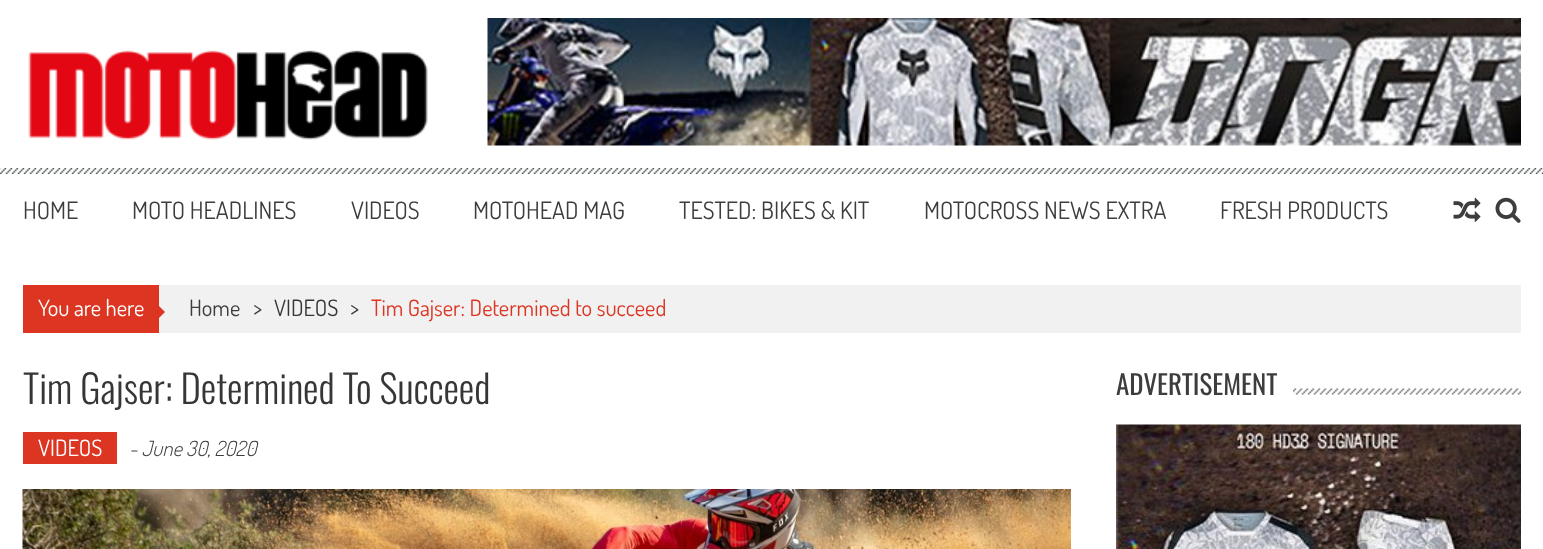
<?xml version="1.0" encoding="UTF-8"?>
<svg xmlns="http://www.w3.org/2000/svg" xmlns:xlink="http://www.w3.org/1999/xlink" width="1543" height="549">
  <rect width="100%" height="100%" fill="#ffffff" />
  <image x="0" y="168" width="1543" height="6" xlink:href="image1.png" />
  <image x="28" y="50" width="400" height="90" xlink:href="image2.png" />
  <image x="487" y="18" width="1034" height="128" xlink:href="image3.png" />
  <image x="1453" y="197" width="28" height="25" xlink:href="image4.png" />
  <image x="1495" y="197" width="26" height="26" xlink:href="image5.png" />
  <rect x="159" y="285" width="1362" height="48" fill="#f1f1f1" />
  <rect x="23" y="285" width="136" height="48" fill="#dc3522" />
  <path d="M 157.5 319.5 v -15 l 7.5 7.5 z" fill="#dc3522" />
  <rect x="23" y="432" width="94" height="32" fill="#dc3522" />
  <image x="22" y="489" width="1049" height="60" xlink:href="image6.png" />
  <image x="1293" y="388" width="228" height="7" xlink:href="image7.png" />
  <image x="1116" y="424" width="405" height="125" xlink:href="image8.png" />
  <text x="23" y="219" style="font-family: Dosis; font-size: 24px; fill: #3d3d3d">HOME</text>
  <text x="132" y="219" style="font-family: Dosis; font-size: 24px; fill: #3d3d3d">MOTO HEADLINES</text>
  <text x="351" y="219" style="font-family: Dosis; font-size: 24px; fill: #3d3d3d">VIDEOS</text>
  <text x="473" y="219" style="font-family: Dosis; font-size: 24px; fill: #3d3d3d">MOTOHEAD MAG</text>
  <text x="679" y="219" style="font-family: Dosis; font-size: 24px; fill: #3d3d3d">TESTED: BIKES &amp; KIT</text>
  <text x="924" y="219" style="font-family: Dosis; font-size: 24px; fill: #3d3d3d">MOTOCROSS NEWS EXTRA</text>
  <text x="1220" y="219" style="font-family: Dosis; font-size: 24px; fill: #3d3d3d">FRESH PRODUCTS</text>
  <text x="38" y="316" style="font-family: Dosis; font-size: 22.5px; fill: #ffffff">You are here</text>
  <text x="189" y="316" style="font-family: Dosis; font-size: 22.5px; fill: #3d3d3d">Home</text>
  <text x="253" y="316" style="font-family: Dosis; font-size: 22.5px; fill: #3d3d3d">&gt;</text>
  <text x="274" y="316" style="font-family: Dosis; font-size: 22.5px; fill: #363636">VIDEOS</text>
  <text x="350" y="316" style="font-family: Dosis; font-size: 22.5px; fill: #3d3d3d">&gt;</text>
  <text x="371" y="316" style="font-family: Dosis; font-size: 22.5px; fill: #dc3522">Tim Gajser: Determined to succeed</text>
  <text x="23" y="404" style="font-family: Oswald; font-size: 39px; font-weight: 300; fill: #363636">Tim Gajser: Determined To Succeed</text>
  <text x="38" y="456" style="font-family: Dosis; font-size: 22.5px; fill: #ffffff">VIDEOS</text>
  <text x="129" y="456" style="font-family: Dosis; font-size: 21px; font-weight: 300; font-style: italic; fill: #3d3d3d">- June 30, 2020</text>
  <text x="1116" y="395" style="font-family: Oswald; font-size: 27px; fill: #3d3d3d">ADVERTISEMENT</text>
</svg>
